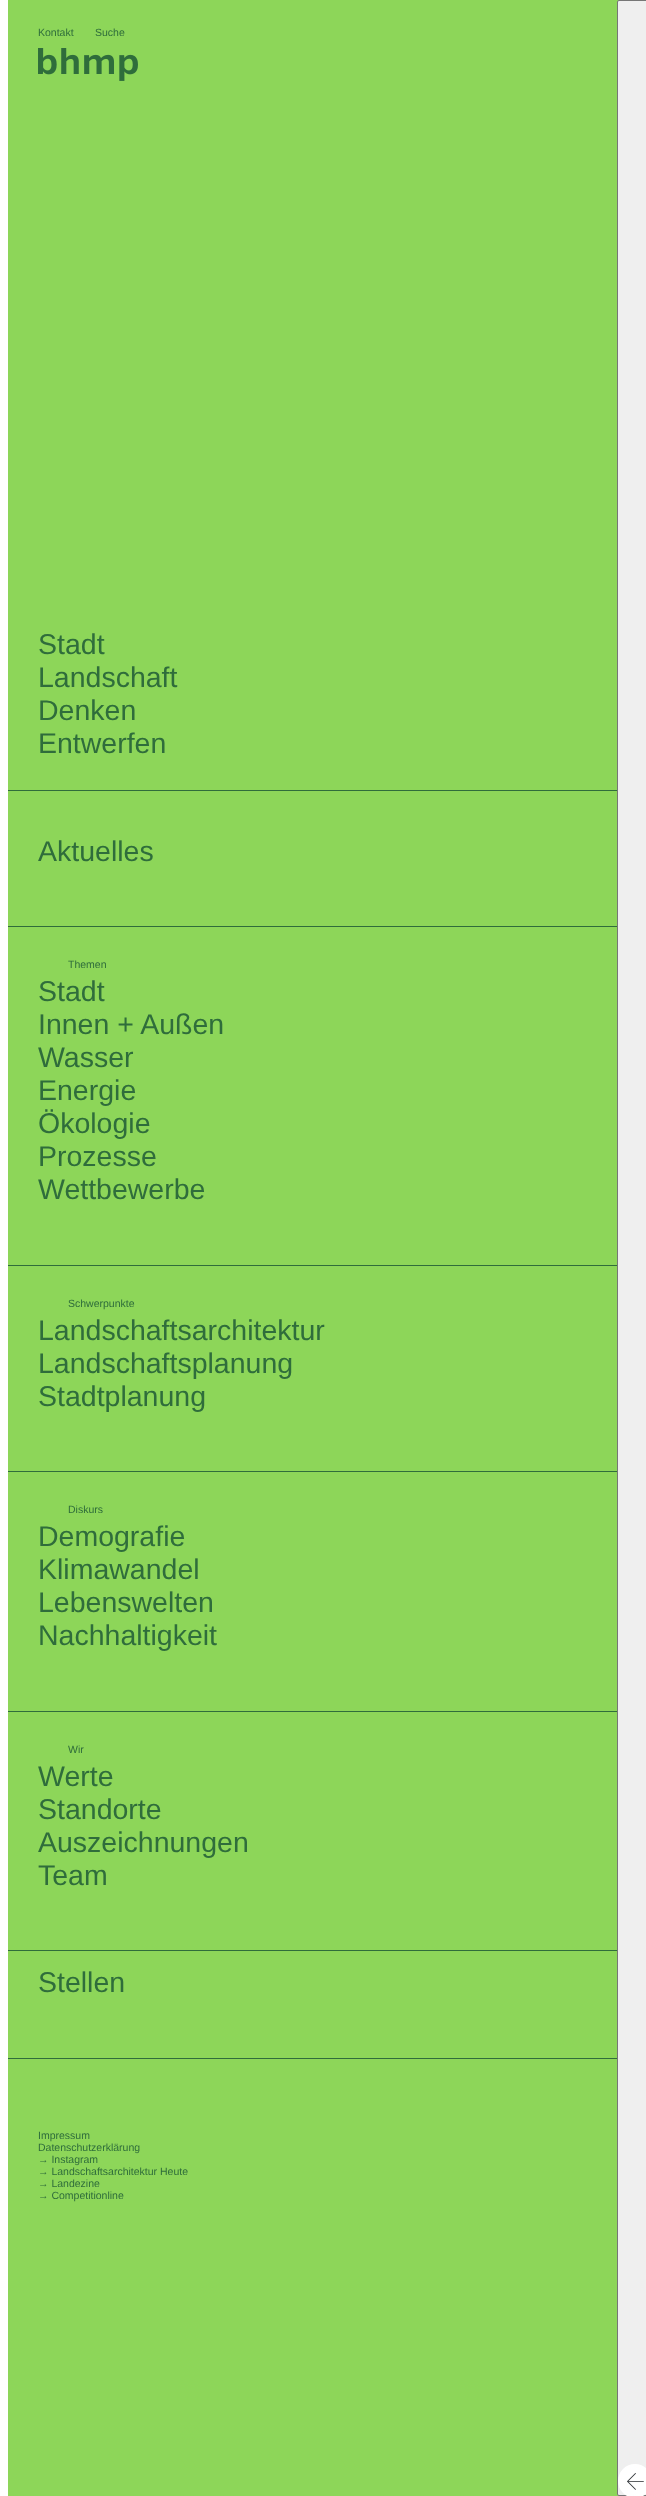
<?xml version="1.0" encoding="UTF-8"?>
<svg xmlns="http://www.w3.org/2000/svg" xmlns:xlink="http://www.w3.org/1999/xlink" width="646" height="2496">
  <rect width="100%" height="100%" fill="#ffffff" />
  <rect x="8" width="611" height="2496" fill="#8dd659" />
  <image x="38" y="48" width="100" height="33" xlink:href="image1.png" />
  <rect x="8" y="790" width="609" height="1" fill="#2f6d3b" />
  <rect x="8" y="926" width="609" height="1" fill="#2f6d3b" />
  <rect x="8" y="1265" width="609" height="1" fill="#2f6d3b" />
  <rect x="8" y="1471" width="609" height="1" fill="#2f6d3b" />
  <rect x="8" y="1711" width="609" height="1" fill="#2f6d3b" />
  <rect x="8" y="1950" width="609" height="1" fill="#2f6d3b" />
  <rect x="8" y="2058" width="609" height="1" fill="#2f6d3b" />
  <rect x="617.5" y="0.5" width="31" height="2495" rx="1.5" fill="#efefef" stroke="#767676" />
  <circle cx="635" cy="2481" r="17" fill="#ffffff" />
  <image x="627" y="2473" width="17" height="17" xlink:href="image2.png" />
  <text x="38" y="36" style="font-family: Liberation Sans; font-size: 10.5px; fill: #2f6d3b">Kontakt</text>
  <text x="95" y="36" style="font-family: Liberation Sans; font-size: 10.5px; fill: #2f6d3b">Suche</text>
  <text x="38" y="654" style="font-family: Liberation Sans; font-size: 28.5px; fill: #2f6d3b">Stadt</text>
  <text x="38" y="687" style="font-family: Liberation Sans; font-size: 28.5px; fill: #2f6d3b">Landschaft</text>
  <text x="38" y="720" style="font-family: Liberation Sans; font-size: 28.5px; fill: #2f6d3b">Denken</text>
  <text x="38" y="753" style="font-family: Liberation Sans; font-size: 28.5px; fill: #2f6d3b">Entwerfen</text>
  <text x="38" y="861" style="font-family: Liberation Sans; font-size: 28.5px; fill: #2f6d3b">Aktuelles</text>
  <text x="68" y="968" style="font-family: Liberation Sans; font-size: 10.5px; fill: #2f6d3b">Themen</text>
  <text x="38" y="1001" style="font-family: Liberation Sans; font-size: 28.5px; fill: #2f6d3b">Stadt</text>
  <text x="38" y="1034" style="font-family: Liberation Sans; font-size: 28.5px; fill: #2f6d3b">Innen + Außen</text>
  <text x="38" y="1067" style="font-family: Liberation Sans; font-size: 28.5px; fill: #2f6d3b">Wasser</text>
  <text x="38" y="1100" style="font-family: Liberation Sans; font-size: 28.5px; fill: #2f6d3b">Energie</text>
  <text x="38" y="1133" style="font-family: Liberation Sans; font-size: 28.5px; fill: #2f6d3b">Ökologie</text>
  <text x="38" y="1166" style="font-family: Liberation Sans; font-size: 28.5px; fill: #2f6d3b">Prozesse</text>
  <text x="38" y="1199" style="font-family: Liberation Sans; font-size: 28.5px; fill: #2f6d3b">Wettbewerbe</text>
  <text x="68" y="1307" style="font-family: Liberation Sans; font-size: 10.5px; fill: #2f6d3b">Schwerpunkte</text>
  <text x="38" y="1340" style="font-family: Liberation Sans; font-size: 28.5px; fill: #2f6d3b">Landschaftsarchitektur</text>
  <text x="38" y="1373" style="font-family: Liberation Sans; font-size: 28.5px; fill: #2f6d3b">Landschaftsplanung</text>
  <text x="38" y="1406" style="font-family: Liberation Sans; font-size: 28.5px; fill: #2f6d3b">Stadtplanung</text>
  <text x="68" y="1513" style="font-family: Liberation Sans; font-size: 10.5px; fill: #2f6d3b">Diskurs</text>
  <text x="38" y="1546" style="font-family: Liberation Sans; font-size: 28.5px; fill: #2f6d3b">Demografie</text>
  <text x="38" y="1579" style="font-family: Liberation Sans; font-size: 28.5px; fill: #2f6d3b">Klimawandel</text>
  <text x="38" y="1612" style="font-family: Liberation Sans; font-size: 28.5px; fill: #2f6d3b">Lebenswelten</text>
  <text x="38" y="1645" style="font-family: Liberation Sans; font-size: 28.5px; fill: #2f6d3b">Nachhaltigkeit</text>
  <text x="68" y="1753" style="font-family: Liberation Sans; font-size: 10.5px; fill: #2f6d3b">Wir</text>
  <text x="38" y="1786" style="font-family: Liberation Sans; font-size: 28.5px; fill: #2f6d3b">Werte</text>
  <text x="38" y="1819" style="font-family: Liberation Sans; font-size: 28.5px; fill: #2f6d3b">Standorte</text>
  <text x="38" y="1852" style="font-family: Liberation Sans; font-size: 28.5px; fill: #2f6d3b">Auszeichnungen</text>
  <text x="38" y="1885" style="font-family: Liberation Sans; font-size: 28.5px; fill: #2f6d3b">Team</text>
  <text x="38" y="1992" style="font-family: Liberation Sans; font-size: 28.5px; fill: #2f6d3b">Stellen</text>
  <text x="38" y="2139" style="font-family: Liberation Sans; font-size: 10.5px; fill: #2f6d3b">Impressum</text>
  <text x="38" y="2151" style="font-family: Liberation Sans; font-size: 10.5px; fill: #2f6d3b">Datenschutzerklärung</text>
  <text x="38" y="2163" style="font-family: Liberation Sans; font-size: 10.5px; fill: #2f6d3b">→ Instagram</text>
  <text x="38" y="2175" style="font-family: Liberation Sans; font-size: 10.5px; fill: #2f6d3b">→ Landschaftsarchitektur Heute</text>
  <text x="38" y="2187" style="font-family: Liberation Sans; font-size: 10.5px; fill: #2f6d3b">→ Landezine</text>
  <text x="38" y="2199" style="font-family: Liberation Sans; font-size: 10.5px; fill: #2f6d3b">→ Competitionline</text>
</svg>
